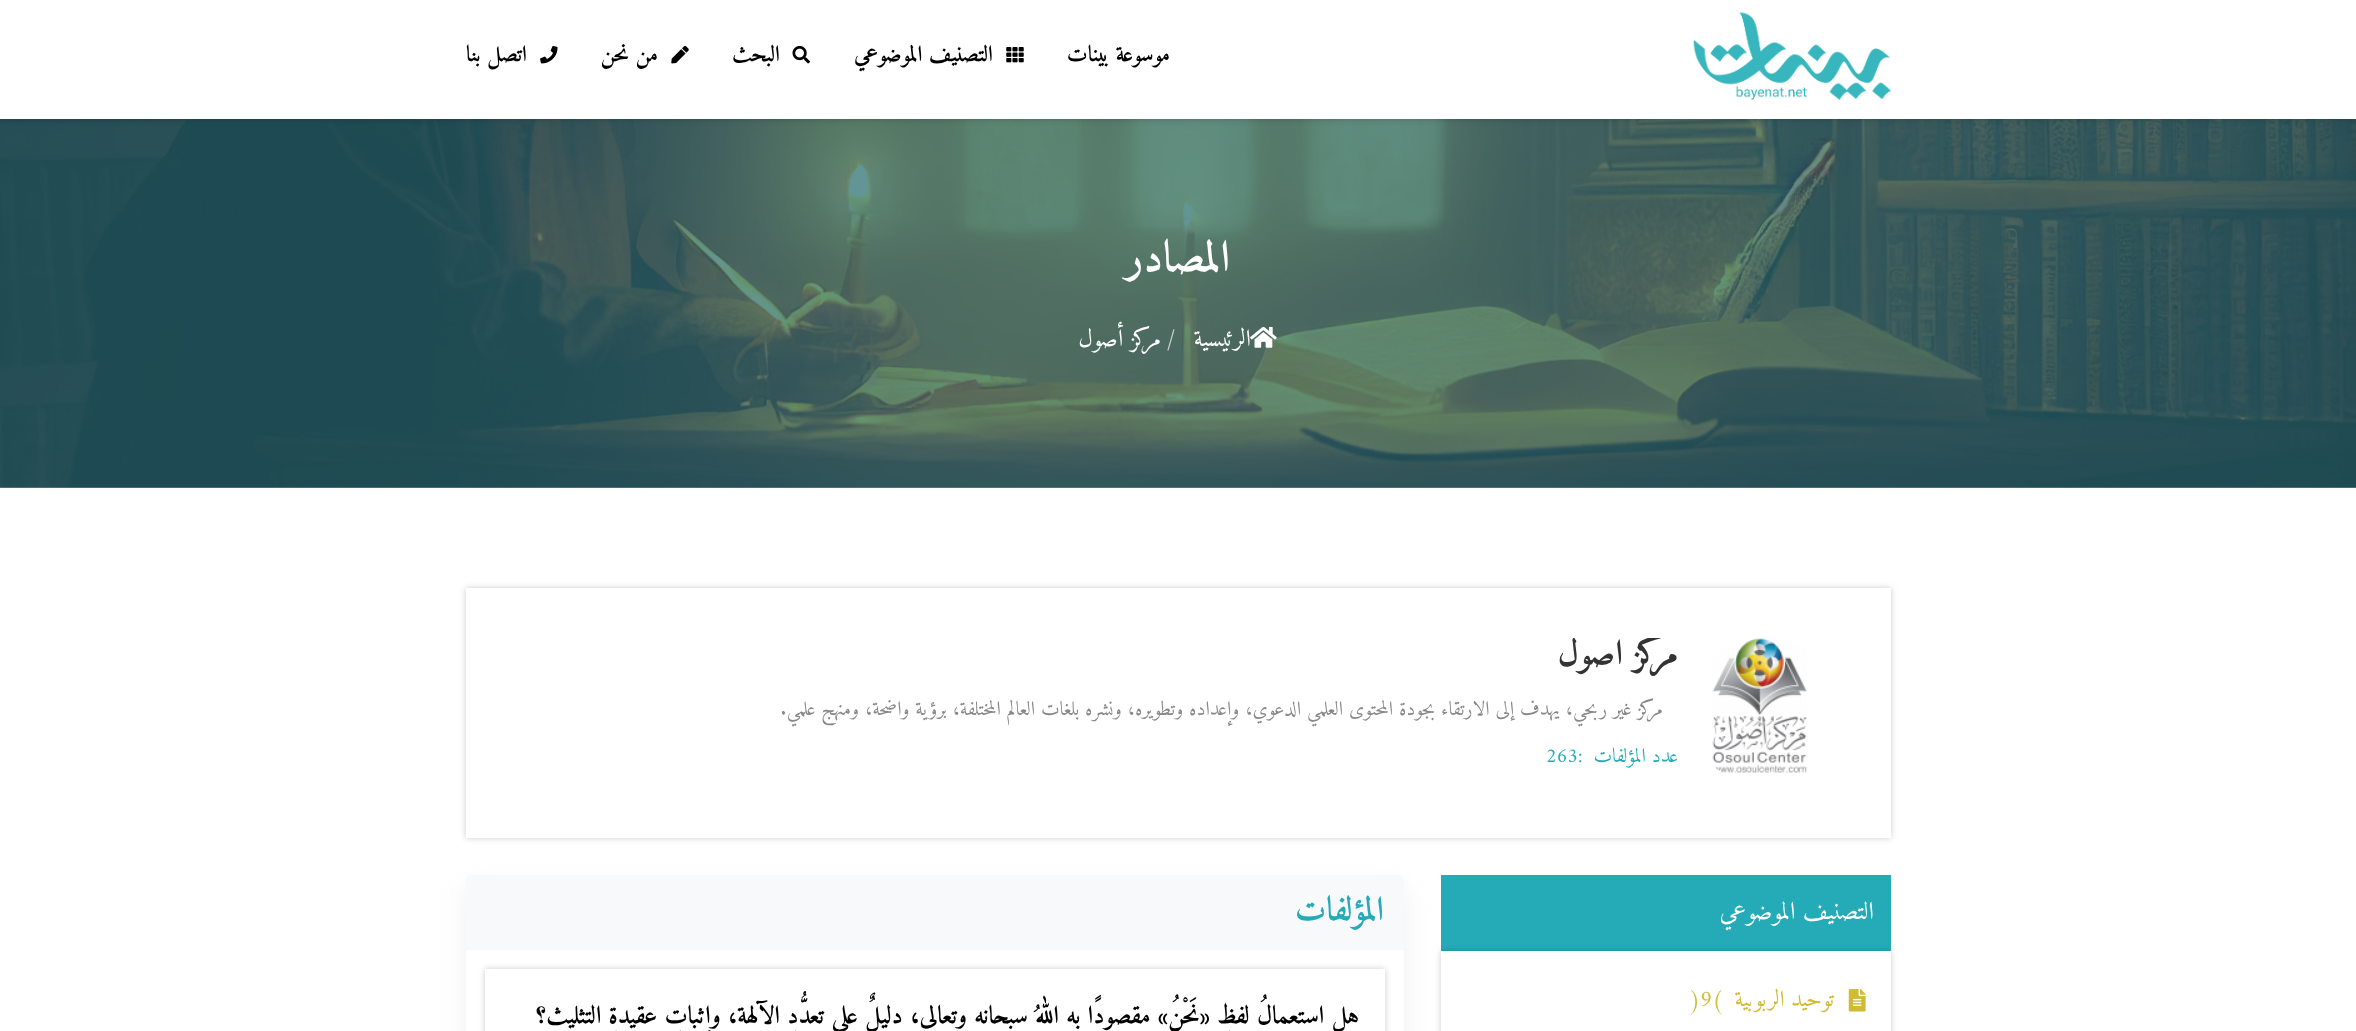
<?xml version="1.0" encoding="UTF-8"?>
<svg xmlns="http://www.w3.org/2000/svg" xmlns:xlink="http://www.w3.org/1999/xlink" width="2356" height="1031">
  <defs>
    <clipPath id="clip1"><path d="M 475 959 h 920 v 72 h -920 z m 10 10 h 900 v 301 h -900 z" clip-rule="evenodd" /></clipPath>
    <clipPath id="clip2"><rect x="516" y="638" width="1163" height="150" /></clipPath>
  </defs>
  <rect width="100%" height="100%" fill="#ffffff" />
  <rect y="487" width="2356" height="1" fill="#639597" />
  <image x="0" y="119" width="2356" height="369" xlink:href="image6.png" />
  <rect width="2356" height="119" fill="#000000" fill-opacity="0.2" filter="blur(3px)" />
  <rect width="2356" height="119" fill="#ffffff" />
  <image x="1693" y="12" width="199" height="88" xlink:href="image1.png" />
  <image x="1006" y="47" width="18" height="16" xlink:href="image2.png" />
  <image x="792" y="45" width="18" height="19" xlink:href="image3.png" />
  <image x="671" y="46" width="18" height="18" xlink:href="image4.png" />
  <image x="540" y="46" width="18" height="18" xlink:href="image5.png" />
  <image x="1250" y="326" width="27" height="22" xlink:href="image7.png" />
  <rect x="466" y="588" width="1425" height="250" fill="#000000" fill-opacity="0.2" filter="blur(3px)" />
  <rect x="466" y="588" width="1425" height="250" fill="#ffffff" />
  <image x="1712" y="638" width="95" height="135" xlink:href="image8.png" />
  <rect x="1441" y="875" width="450" height="76" fill="#25abb8" />
  <rect x="1441" y="951" width="450" height="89" fill="#000000" fill-opacity="0.2" filter="blur(3px)" />
  <rect x="1441" y="951" width="450" height="80" fill="#ffffff" />
  <image x="1848" y="989" width="18" height="23" xlink:href="image9.png" />
  <rect x="466" y="888" width="938" height="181" fill="#f0f0f0" filter="blur(12.5px)" />
  <rect x="466" y="876" width="938" height="155" fill="#ffffff" />
  <path d="M 470 875 h 930 c 2 0 4 2 4 4 v 71 h -938 v -71 c 0 -2 2 -4 4 -4 z" fill="#f8f9fa" />
  <g clip-path="url(#clip1)">
    <rect x="485" y="969" width="900" height="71" fill="#000000" fill-opacity="0.2" filter="blur(3px)" />
  </g>
  <text x="1170" y="61" style="font-family: Amiri; font-size: 22.5px; font-weight: bold; direction: rtl; fill: #000000">موسوعة بينات</text>
  <text x="993" y="61" style="font-family: Amiri; font-size: 22.5px; font-weight: bold; direction: rtl; fill: #000000">التصنيف الموضوعي</text>
  <text x="780" y="61" style="font-family: Amiri; font-size: 22.5px; font-weight: bold; direction: rtl; fill: #000000">البحث</text>
  <text x="658" y="61" style="font-family: Amiri; font-size: 22.5px; font-weight: bold; direction: rtl; fill: #000000">من نحن</text>
  <text x="527" y="61" style="font-family: Amiri; font-size: 22.5px; font-weight: bold; direction: rtl; fill: #000000">اتصل بنا</text>
  <text x="1230" y="271" style="font-family: Amiri; font-size: 44px; font-weight: bold; direction: rtl; fill: #ffffff">المصادر</text>
  <text x="1251" y="346" style="font-family: Amiri; font-size: 24px; direction: rtl; fill: #ffffff">الرئيسية</text>
  <text x="1167" y="346" style="font-family: Amiri; font-size: 24px; fill: #cccccc">/</text>
  <text x="1161" y="346" style="font-family: Amiri; font-size: 24px; direction: rtl; fill: #ffffff">مركز أصول</text>
  <g clip-path="url(#clip2)">
    <text x="1678" y="664" style="font-family: Amiri; font-size: 35px; font-weight: bold; direction: rtl; fill: #333333">مركز أصول</text>
  </g>
  <text x="1663" y="715" style="font-family: Amiri; font-size: 20px; direction: rtl; fill: #888888">مركز غير ربحي، يهدف إلى الارتقاء بجودة المحتوى العلمي الدعوي، وإعداده وتطويره، ونشره بلغات العالم المختلفة، برؤية واضحة، ومنهج علمي.</text>
  <text x="1678" y="762" style="font-family: Amiri; font-size: 20px; direction: rtl; fill: #25abb8">عدد المؤلفات</text>
  <text x="1546" y="762" style="font-family: Amiri; font-size: 20px; fill: #25abb8">263:</text>
  <text x="1874" y="919" style="font-family: Amiri; font-size: 25px; direction: rtl; fill: #ffffff">التصنيف الموضوعي</text>
  <text x="1834" y="1006" style="font-family: Amiri; font-size: 22.5px; direction: rtl; fill: #d0bb36">توحيد الربوبية</text>
  <text x="1690" y="1006" style="font-family: Amiri; font-size: 22.5px; fill: #d0bb36">)9(</text>
  <text x="1384" y="920" style="font-family: Amiri; font-size: 34px; font-weight: bold; direction: rtl; fill: #25abb8">المؤلفات</text>
  <text x="1359" y="1023" style="font-family: Amiri; font-size: 25px; font-weight: bold; direction: rtl; fill: #000000">هل استعمالُ لفظِ «نَحْنُ» مقصودًا به اللهُ سبحانه وتعالى، دليلٌ على تعدُّدِ الآلهة، وإثباتِ عقيدةِ التثليث؟</text>
</svg>
